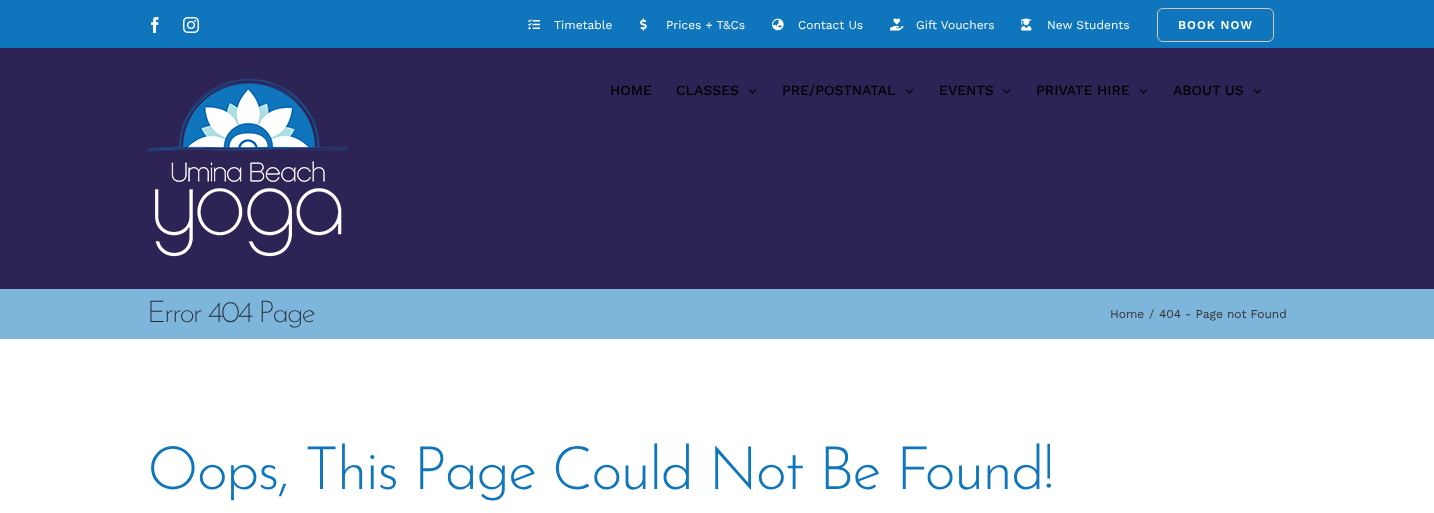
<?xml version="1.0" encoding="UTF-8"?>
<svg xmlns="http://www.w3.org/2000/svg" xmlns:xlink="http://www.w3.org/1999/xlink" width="1434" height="513">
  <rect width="100%" height="100%" fill="#ffffff" />
  <rect width="1434" height="48" fill="#0f75bc" />
  <image x="151" y="17" width="8" height="16" xlink:href="image1.png" />
  <image x="183" y="17" width="16" height="16" xlink:href="image2.png" />
  <image x="528" y="19" width="12" height="11" xlink:href="image3.png" />
  <image x="640" y="18" width="7" height="13" xlink:href="image4.png" />
  <image x="772" y="18" width="12" height="13" xlink:href="image5.png" />
  <image x="890" y="18" width="14" height="13" xlink:href="image6.png" />
  <image x="1021" y="18" width="11" height="13" xlink:href="image7.png" />
  <rect x="1157.5" y="8.5" width="116" height="33" rx="5.5" fill="none" stroke="#dbc7ad" />
  <rect y="48" width="1434" height="241" fill="#2d2354" />
  <image x="147" y="78" width="200" height="179" xlink:href="image8.png" />
  <image x="748" y="89" width="9" height="5" xlink:href="image9.png" />
  <image x="905" y="89" width="9" height="5" xlink:href="image9.png" />
  <image x="1002" y="89" width="9" height="5" xlink:href="image9.png" />
  <image x="1139" y="89" width="9" height="5" xlink:href="image9.png" />
  <image x="1253" y="89" width="9" height="5" xlink:href="image9.png" />
  <rect y="289" width="1434" height="50" fill="#7db5db" />
  <text x="554" y="29" style="font-family: Work Sans; font-size: 12px; fill: #ffffff">Timetable</text>
  <text x="666" y="29" style="font-family: Work Sans; font-size: 12px; fill: #ffffff">Prices + T&amp;Cs</text>
  <text x="798" y="29" style="font-family: Work Sans; font-size: 12px; fill: #ffffff">Contact Us</text>
  <text x="916" y="29" style="font-family: Work Sans; font-size: 12px; fill: #ffffff">Gift Vouchers</text>
  <text x="1047" y="29" style="font-family: Work Sans; font-size: 12px; fill: #ffffff">New Students</text>
  <text x="1178" y="29" style="font-family: Work Sans; font-size: 12px; font-weight: 600; letter-spacing: 1px; fill: #ffffff">BOOK NOW</text>
  <text x="610" y="95" style="font-family: Work Sans; font-size: 14px; font-weight: 500; fill: #000000">HOME</text>
  <text x="676" y="95" style="font-family: Work Sans; font-size: 14px; font-weight: 500; fill: #000000">CLASSES</text>
  <text x="782" y="95" style="font-family: Work Sans; font-size: 14px; font-weight: 500; fill: #000000">PRE/POSTNATAL</text>
  <text x="939" y="95" style="font-family: Work Sans; font-size: 14px; font-weight: 500; fill: #000000">EVENTS</text>
  <text x="1036" y="95" style="font-family: Work Sans; font-size: 14px; font-weight: 500; fill: #000000">PRIVATE HIRE</text>
  <text x="1173" y="95" style="font-family: Work Sans; font-size: 14px; font-weight: 500; fill: #000000">ABOUT US</text>
  <text x="147" y="322" style="font-family: Josefin Sans; font-size: 30px; font-weight: 200; letter-spacing: -2px; fill: #212934">Error 404 Page</text>
  <text x="1110" y="318" style="font-family: Work Sans; font-size: 12px; fill: #333333">Home</text>
  <text x="1149" y="318" style="font-family: Work Sans; font-size: 12px; fill: #333333">/</text>
  <text x="1159" y="318" style="font-family: Work Sans; font-size: 12px; fill: #333333">404 - Page not Found</text>
  <text x="147" y="489" style="font-family: Josefin Sans; font-size: 60px; font-weight: 300; letter-spacing: -2px; fill: #0f75bc">Oops, This Page Could Not Be Found!</text>
</svg>
